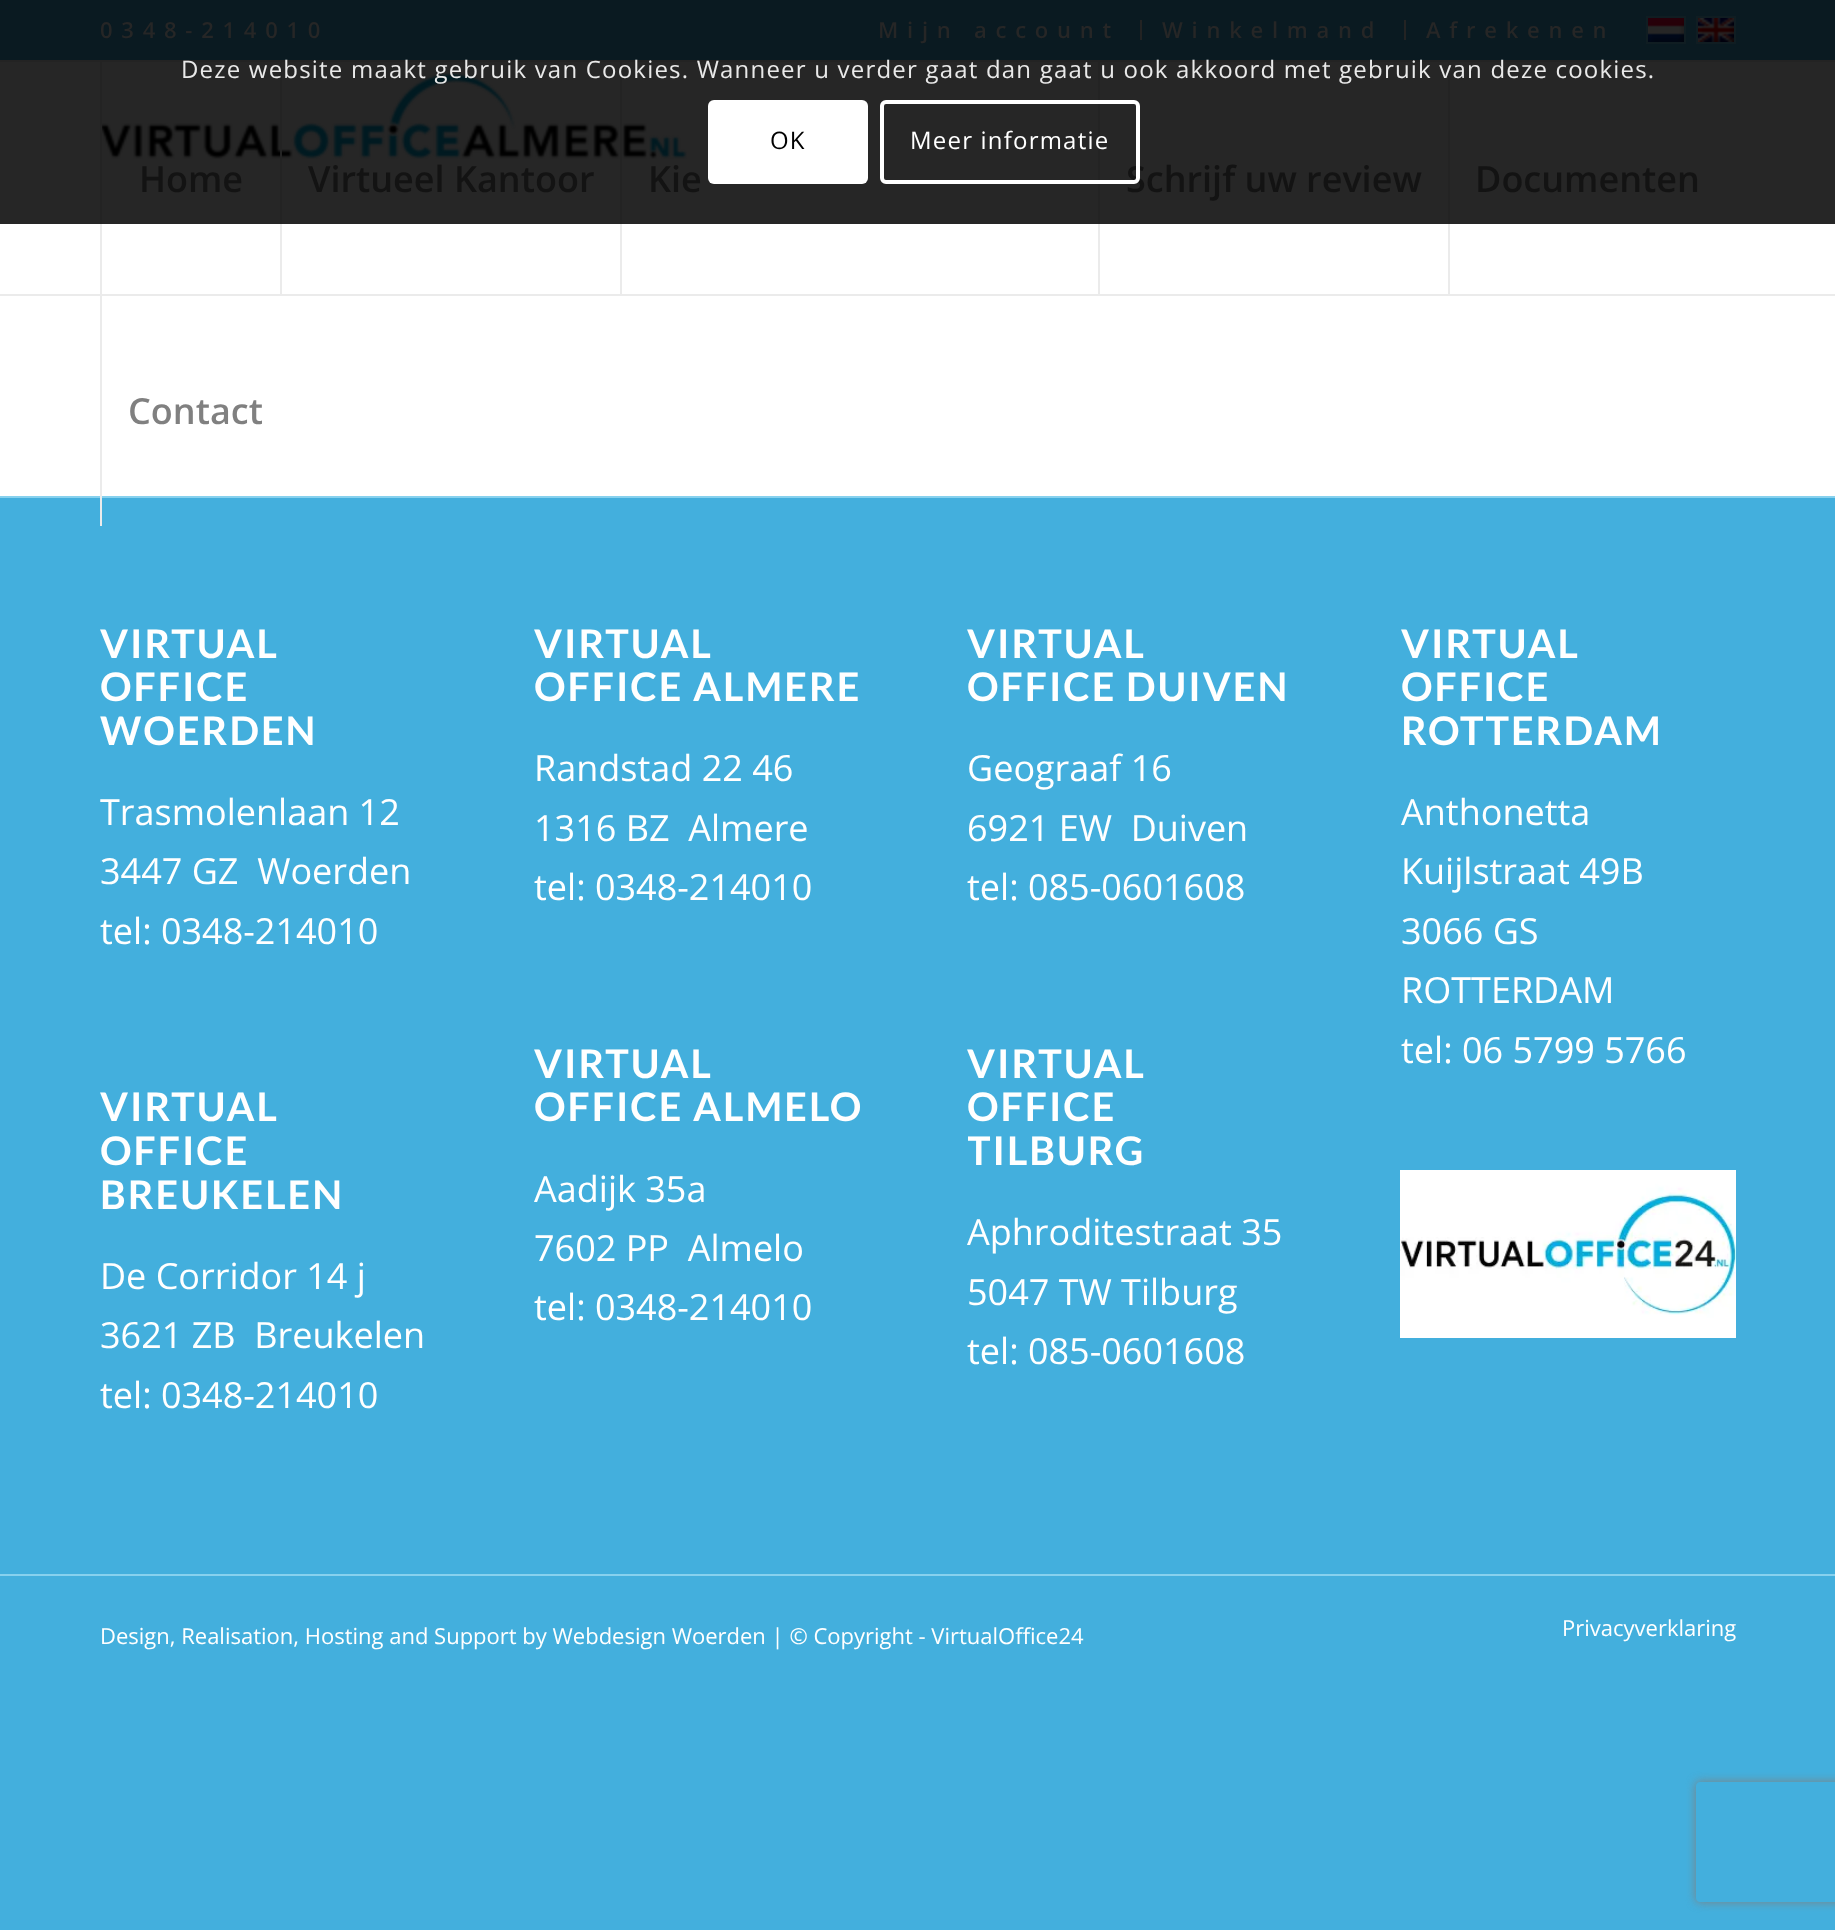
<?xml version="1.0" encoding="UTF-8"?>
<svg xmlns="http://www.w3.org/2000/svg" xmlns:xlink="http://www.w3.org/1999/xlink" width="1835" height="1930">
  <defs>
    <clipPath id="clip1"><path d="M 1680 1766 h 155 v 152 h -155 z m 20 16 h 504 c 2 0 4 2 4 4 v 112 c 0 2 -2 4 -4 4 h -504 c -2 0 -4 -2 -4 -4 v -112 c 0 -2 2 -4 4 -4 z" clip-rule="evenodd" /></clipPath>
    <clipPath id="clip2"><rect x="968" y="1008" width="334" height="404" /></clipPath>
  </defs>
  <rect width="100%" height="100%" fill="#43afdd" />
  <rect y="224" width="1835" height="272" fill="#ffffff" />
  <rect y="62" width="1835" height="162" fill="#262626" />
  <rect width="1835" height="60" fill="#0a1a21" />
  <rect y="60" width="1835" height="2" fill="#232323" />
  <rect x="1140" y="20" width="2" height="20" fill="#232323" />
  <rect x="1404" y="20" width="2" height="20" fill="#232323" />
  <rect x="1647" y="17" width="38" height="26" fill="none" stroke="#101d22" stroke-width="2" />
  <image x="1648" y="18" width="36" height="24" xlink:href="image1.png" />
  <rect x="1697" y="17" width="38" height="26" fill="none" stroke="#101d22" stroke-width="2" />
  <image x="1698" y="18" width="36" height="24" xlink:href="image2.png" />
  <rect y="294" width="1835" height="2" fill="#ebebeb" />
  <image x="102" y="73" width="585" height="86" xlink:href="image3.png" />
  <rect y="496" width="1835" height="2" fill="#87d1ee" />
  <rect x="100" y="224" width="2" height="302" fill="#ebebeb" />
  <rect x="100" y="62" width="2" height="162" fill="#232323" />
  <rect x="280" y="224" width="2" height="70" fill="#ebebeb" />
  <rect x="280" y="62" width="2" height="162" fill="#232323" />
  <rect x="620" y="224" width="2" height="70" fill="#ebebeb" />
  <rect x="620" y="62" width="2" height="162" fill="#232323" />
  <rect x="1098" y="224" width="2" height="70" fill="#ebebeb" />
  <rect x="1098" y="62" width="2" height="162" fill="#232323" />
  <rect x="1448" y="224" width="2" height="70" fill="#ebebeb" />
  <rect x="1448" y="62" width="2" height="162" fill="#232323" />
  <image x="1400" y="1170" width="336" height="168" xlink:href="image4.png" />
  <rect y="1574" width="1835" height="2" fill="#87d1ee" />
  <rect x="708" y="100" width="160" height="84" rx="6" fill="#ffffff" />
  <g clip-path="url(#clip1)">
    <rect x="1696" y="1782" width="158" height="120" rx="4" fill="#808080" filter="blur(5px)" />
  </g>
  <text x="100" y="38" style="font-family: Open Sans; font-size: 22px; font-weight: 600; letter-spacing: 8.75px; fill: #262626">0348-214010</text>
  <text x="878" y="38" style="font-family: Open Sans; font-size: 22px; font-weight: 600; letter-spacing: 8.75px; fill: #262626">Mijn account</text>
  <text x="1162" y="38" style="font-family: Open Sans; font-size: 22px; font-weight: 600; letter-spacing: 8.75px; fill: #262626">Winkelmand</text>
  <text x="1426" y="38" style="font-family: Open Sans; font-size: 22px; font-weight: 600; letter-spacing: 8.75px; fill: #262626">Afrekenen</text>
  <text x="139" y="192" style="font-family: Open Sans; font-size: 36px; font-weight: 600; fill: #131313">Home</text>
  <text x="308" y="192" style="font-family: Open Sans; font-size: 36px; font-weight: 600; fill: #131313">Virtueel Kantoor</text>
  <text x="648" y="192" style="font-family: Open Sans; font-size: 36px; font-weight: 600; fill: #131313">Kie</text>
  <text x="1126" y="192" style="font-family: Open Sans; font-size: 36px; font-weight: 600; fill: #131313">Schrijf uw review</text>
  <text x="1475" y="192" style="font-family: Open Sans; font-size: 36px; font-weight: 600; fill: #131313">Documenten</text>
  <text x="128" y="424" style="font-family: Open Sans; font-size: 36px; font-weight: 600; fill: #808080">Contact</text>
  <text x="100" y="658" style="font-family: Lato; font-size: 39.5px; font-weight: bold; letter-spacing: 2px; fill: #ffffff">VIRTUAL</text>
  <text x="100" y="701" style="font-family: Lato; font-size: 39.5px; font-weight: bold; letter-spacing: 2px; fill: #ffffff">OFFICE</text>
  <text x="100" y="745" style="font-family: Lato; font-size: 39.5px; font-weight: bold; letter-spacing: 2px; fill: #ffffff">WOERDEN</text>
  <text x="100" y="825" style="font-family: Open Sans; font-size: 36px; fill: #ffffff">Trasmolenlaan 12</text>
  <text x="100" y="884" style="font-family: Open Sans; font-size: 36px; fill: #ffffff" xml:space="preserve">3447 GZ  Woerden</text>
  <text x="100" y="944" style="font-family: Open Sans; font-size: 36px; fill: #ffffff">tel: 0348-214010</text>
  <text x="100" y="1121" style="font-family: Lato; font-size: 39.5px; font-weight: bold; letter-spacing: 2px; fill: #ffffff">VIRTUAL</text>
  <text x="100" y="1165" style="font-family: Lato; font-size: 39.5px; font-weight: bold; letter-spacing: 2px; fill: #ffffff">OFFICE</text>
  <text x="100" y="1209" style="font-family: Lato; font-size: 39.5px; font-weight: bold; letter-spacing: 2px; fill: #ffffff">BREUKELEN</text>
  <text x="100" y="1289" style="font-family: Open Sans; font-size: 36px; fill: #ffffff">De Corridor 14 j</text>
  <text x="100" y="1348" style="font-family: Open Sans; font-size: 36px; fill: #ffffff" xml:space="preserve">3621 ZB  Breukelen</text>
  <text x="100" y="1408" style="font-family: Open Sans; font-size: 36px; fill: #ffffff">tel: 0348-214010</text>
  <text x="534" y="658" style="font-family: Lato; font-size: 39.5px; font-weight: bold; letter-spacing: 2px; fill: #ffffff">VIRTUAL</text>
  <text x="534" y="701" style="font-family: Lato; font-size: 39.5px; font-weight: bold; letter-spacing: 2px; fill: #ffffff">OFFICE ALMERE</text>
  <text x="534" y="781" style="font-family: Open Sans; font-size: 36px; fill: #ffffff">Randstad 22 46</text>
  <text x="534" y="841" style="font-family: Open Sans; font-size: 36px; fill: #ffffff" xml:space="preserve">1316 BZ  Almere</text>
  <text x="534" y="900" style="font-family: Open Sans; font-size: 36px; fill: #ffffff">tel: 0348-214010</text>
  <text x="534" y="1078" style="font-family: Lato; font-size: 39.5px; font-weight: bold; letter-spacing: 2px; fill: #ffffff">VIRTUAL</text>
  <text x="534" y="1121" style="font-family: Lato; font-size: 39.5px; font-weight: bold; letter-spacing: 2px; fill: #ffffff">OFFICE ALMELO</text>
  <text x="534" y="1202" style="font-family: Open Sans; font-size: 36px; fill: #ffffff">Aadijk 35a</text>
  <text x="534" y="1261" style="font-family: Open Sans; font-size: 36px; fill: #ffffff" xml:space="preserve">7602 PP  Almelo</text>
  <text x="534" y="1320" style="font-family: Open Sans; font-size: 36px; fill: #ffffff">tel: 0348-214010</text>
  <text x="967" y="658" style="font-family: Lato; font-size: 39.5px; font-weight: bold; letter-spacing: 2px; fill: #ffffff">VIRTUAL</text>
  <text x="967" y="701" style="font-family: Lato; font-size: 39.5px; font-weight: bold; letter-spacing: 2px; fill: #ffffff">OFFICE DUIVEN</text>
  <text x="967" y="781" style="font-family: Open Sans; font-size: 36px; fill: #ffffff">Geograaf 16</text>
  <text x="967" y="841" style="font-family: Open Sans; font-size: 36px; fill: #ffffff" xml:space="preserve">6921 EW  Duiven</text>
  <text x="967" y="900" style="font-family: Open Sans; font-size: 36px; fill: #ffffff">tel: 085-0601608</text>
  <text x="967" y="1078" style="font-family: Lato; font-size: 39.5px; font-weight: bold; letter-spacing: 2px; fill: #ffffff">VIRTUAL</text>
  <text x="967" y="1121" style="font-family: Lato; font-size: 39.5px; font-weight: bold; letter-spacing: 2px; fill: #ffffff">OFFICE</text>
  <g clip-path="url(#clip2)">
    <text x="967" y="1165" style="font-family: Lato; font-size: 39.5px; font-weight: bold; letter-spacing: 2px; fill: #ffffff">TILBURG</text>
  </g>
  <text x="967" y="1245" style="font-family: Open Sans; font-size: 36px; fill: #ffffff">Aphroditestraat 35</text>
  <text x="967" y="1305" style="font-family: Open Sans; font-size: 36px; fill: #ffffff">5047 TW Tilburg</text>
  <text x="967" y="1364" style="font-family: Open Sans; font-size: 36px; fill: #ffffff">tel: 085-0601608</text>
  <text x="1401" y="658" style="font-family: Lato; font-size: 39.5px; font-weight: bold; letter-spacing: 2px; fill: #ffffff">VIRTUAL</text>
  <text x="1401" y="701" style="font-family: Lato; font-size: 39.5px; font-weight: bold; letter-spacing: 2px; fill: #ffffff">OFFICE</text>
  <text x="1401" y="745" style="font-family: Lato; font-size: 39.5px; font-weight: bold; letter-spacing: 2px; fill: #ffffff">ROTTERDAM</text>
  <text x="1401" y="825" style="font-family: Open Sans; font-size: 36px; fill: #ffffff">Anthonetta</text>
  <text x="1401" y="884" style="font-family: Open Sans; font-size: 36px; fill: #ffffff">Kuijlstraat 49B</text>
  <text x="1401" y="944" style="font-family: Open Sans; font-size: 36px; fill: #ffffff">3066 GS</text>
  <text x="1401" y="1003" style="font-family: Open Sans; font-size: 36px; fill: #ffffff">ROTTERDAM</text>
  <text x="1401" y="1063" style="font-family: Open Sans; font-size: 36px; fill: #ffffff">tel: 06 5799 5766</text>
  <text x="100" y="1644" style="font-family: Open Sans; font-size: 22px; fill: #ffffff">Design, Realisation, Hosting and Support by Webdesign Woerden | © Copyright - VirtualOffice24</text>
  <text x="1562" y="1636" style="font-family: Open Sans; font-size: 22px; fill: #ffffff">Privacyverklaring</text>
  <text x="181" y="78" style="font-family: Open Sans; font-size: 24px; letter-spacing: 1.2px; fill: #e9e9e9">Deze website maakt gebruik van Cookies. Wanneer u verder gaat dan gaat u ook akkoord met gebruik van deze cookies.</text>
  <text x="770" y="149" style="font-family: Open Sans; font-size: 24px; letter-spacing: 1.2px; fill: #000000">OK</text>
  <rect x="882" y="102" width="256" height="80" rx="4" fill="none" stroke="#ffffff" stroke-width="4" />
  <text x="910" y="149" style="font-family: Open Sans; font-size: 24px; letter-spacing: 1.2px; fill: #ffffff">Meer informatie</text>
</svg>
